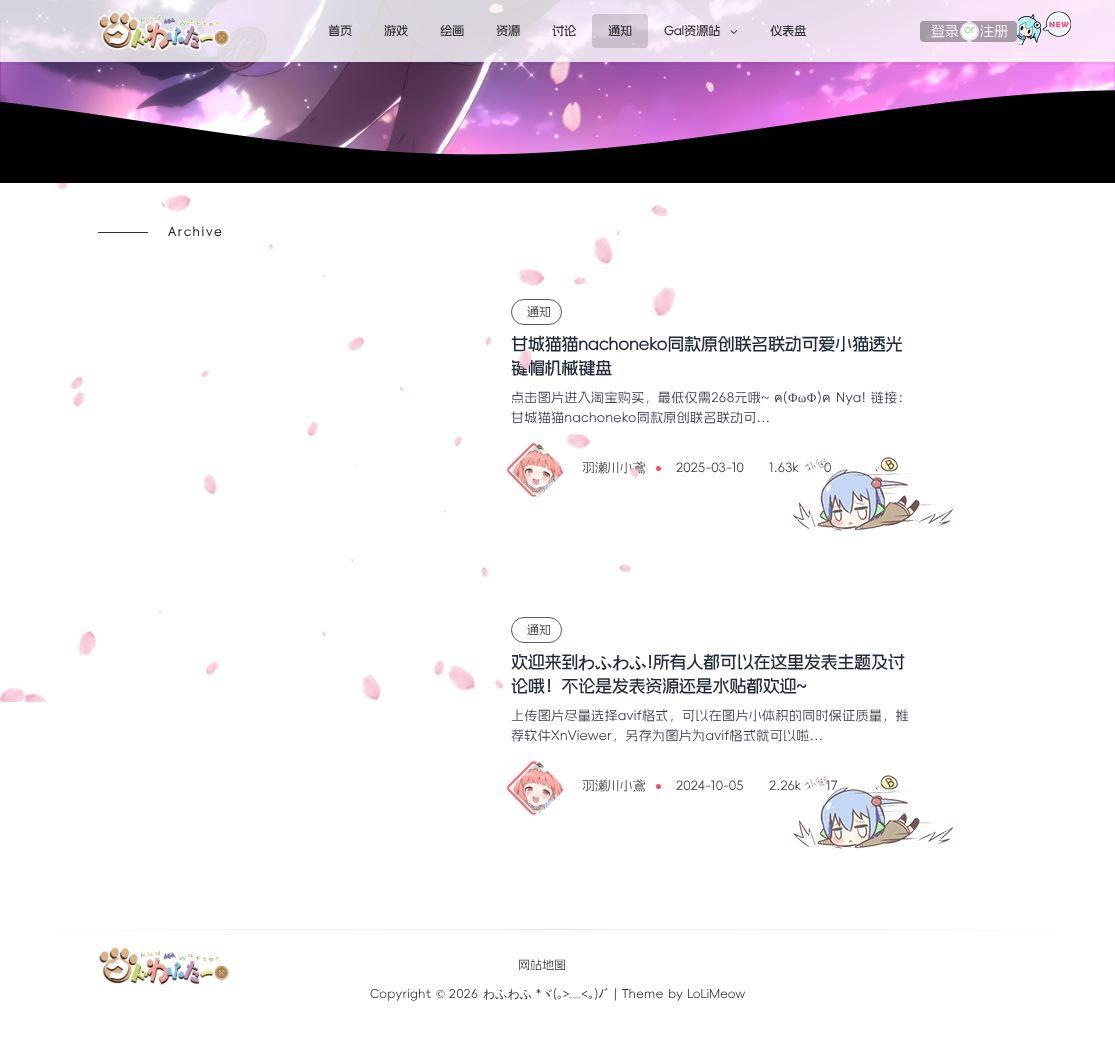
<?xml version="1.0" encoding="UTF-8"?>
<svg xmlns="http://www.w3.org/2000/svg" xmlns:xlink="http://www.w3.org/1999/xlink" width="1115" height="1052">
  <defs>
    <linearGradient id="g1" gradientUnits="userSpaceOnUse" x1="0" y1="930" x2="1115" y2="930"><stop offset="0" stop-color="#ffffff" /><stop offset="0.5" stop-color="#e5e5e5" /><stop offset="1" stop-color="#ffffff" /></linearGradient>
    <clipPath id="clip1"><rect x="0" y="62" width="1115" height="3" /></clipPath>
  </defs>
  <rect width="100%" height="100%" fill="#ffffff" />
  <image x="0" y="0" width="1115" height="155" xlink:href="image2.png" />
  <rect x="98" y="232" width="50" height="1" fill="#333333" />
  <image x="792" y="457" width="162" height="74" xlink:href="image7.png" />
  <rect x="511.5" y="299.5" width="50" height="25" rx="12.5" fill="none" stroke="#5d5d5d" />
  <path d="M 536 445.5 l 22.5 22.5 c 1 1 1 3 0 4 l -22.5 23 c -1.5 1 -3 1 -4.5 0 l -22.5 -23 c -1 -1 -1 -3 0 -4 l 22.5 -22.5 c 1.5 -1.5 3 -1.5 4.5 0 z" fill="none" stroke="#ff6363" stroke-width="2" />
  <image x="512" y="444" width="53" height="53" xlink:href="image8.png" />
  <circle cx="658.5" cy="468.5" r="2.5" fill="#ff4c60" />
  <image x="792" y="775" width="162" height="74" xlink:href="image7.png" />
  <rect x="511.5" y="617.5" width="50" height="25" rx="12.5" fill="none" stroke="#5d5d5d" />
  <path d="M 536 763.5 l 22.5 22.5 c 1 1 1 3 0 4 l -22.5 23 c -1.5 1 -3 1 -4.5 0 l -22.5 -23 c -1 -1 -1 -3 0 -4 l 22.5 -22.5 c 1.5 -1.5 3 -1.5 4.5 0 z" fill="none" stroke="#ff6363" stroke-width="2" />
  <image x="512" y="762" width="53" height="53" xlink:href="image8.png" />
  <circle cx="658.5" cy="786.5" r="2.5" fill="#ff4c60" />
  <rect x="54" y="929" width="1007" height="1" fill="url(#g1)" />
  <image x="99" y="947" width="130" height="38" xlink:href="image9.png" />
  <text x="168" y="236" style="font-family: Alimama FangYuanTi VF; font-size: 12px; font-weight: bold; letter-spacing: 2px; fill: #333333">Archive</text>
  <text x="527" y="316" style="font-family: Alimama FangYuanTi VF; font-size: 12px; fill: #333333">通知</text>
  <text x="511" y="350" style="font-family: Alimama FangYuanTi VF; font-size: 16.8px; font-weight: bold; fill: #1e293b">甘城猫猫nachoneko同款原创联名联动可爱小猫透光</text>
  <text x="511" y="374" style="font-family: Alimama FangYuanTi VF; font-size: 16.8px; font-weight: bold; fill: #1e293b">键帽机械键盘</text>
  <text x="511" y="402" style="font-family: Alimama FangYuanTi VF; font-size: 13px; letter-spacing: 0.35px; fill: #353a44">点击图片进入淘宝购买，最低仅需268元哦~</text>
  <text x="774" y="402" style="font-family: Loma; font-size: 13px; letter-spacing: 0.35px; fill: #353a44">ฅ</text>
  <text x="783" y="402" style="font-family: Alimama FangYuanTi VF; font-size: 13px; letter-spacing: 0.35px; fill: #353a44">(</text>
  <text x="788" y="402" style="font-family: Liberation Serif; font-size: 13px; letter-spacing: 0.35px; fill: #353a44">ΦωΦ</text>
  <text x="817" y="402" style="font-family: Alimama FangYuanTi VF; font-size: 13px; letter-spacing: 0.35px; fill: #353a44">)</text>
  <text x="822" y="402" style="font-family: Loma; font-size: 13px; letter-spacing: 0.35px; fill: #353a44">ฅ</text>
  <text x="836" y="402" style="font-family: Alimama FangYuanTi VF; font-size: 13px; letter-spacing: 0.35px; fill: #353a44">Nya! 链接：</text>
  <text x="511" y="422" style="font-family: Alimama FangYuanTi VF; font-size: 13px; letter-spacing: 0.35px; fill: #353a44">甘城猫猫nachoneko同款原创联名联动可...</text>
  <text x="582" y="472" style="font-family: Alimama FangYuanTi VF; font-size: 12.75px; fill: #3b3b3b">羽</text>
  <text x="595" y="472" style="font-family: WenQuanYi Zen Hei; font-size: 12.75px; font-weight: 500; fill: #3b3b3b">瀬</text>
  <text x="607" y="472" style="font-family: Alimama FangYuanTi VF; font-size: 12.75px; fill: #3b3b3b">川小</text>
  <text x="633" y="472" style="font-family: WenQuanYi Zen Hei; font-size: 12.75px; font-weight: 500; fill: #3b3b3b">鳶</text>
  <text x="676" y="472" style="font-family: Alimama FangYuanTi VF; font-size: 12.75px; fill: #3b3b3b">2025-03-10</text>
  <text x="769" y="472" style="font-family: Alimama FangYuanTi VF; font-size: 12.75px; fill: #3b3b3b">1.63k</text>
  <text x="824" y="472" style="font-family: Alimama FangYuanTi VF; font-size: 12.75px; fill: #3b3b3b">0</text>
  <text x="527" y="634" style="font-family: Alimama FangYuanTi VF; font-size: 12px; fill: #333333">通知</text>
  <text x="511" y="668" style="font-family: Alimama FangYuanTi VF; font-size: 16.8px; font-weight: bold; fill: #1e293b">欢迎来到</text>
  <text x="578" y="668" style="font-family: WenQuanYi Zen Hei; font-size: 16.8px; font-weight: bold; fill: #1e293b">わふわふ</text>
  <text x="647" y="668" style="font-family: Alimama FangYuanTi VF; font-size: 16.8px; font-weight: bold; fill: #1e293b">!所有人都可以在这里发表主题及讨</text>
  <text x="511" y="692" style="font-family: Alimama FangYuanTi VF; font-size: 16.8px; font-weight: bold; fill: #1e293b">论哦！不论是发表资源还是水贴都欢迎~</text>
  <image x="0" y="3" width="714" height="699" xlink:href="image1.png" />
  <g clip-path="url(#clip1)">
    <rect y="2" width="1115" height="62" fill="#020617" fill-opacity="0.07" filter="blur(2px)" />
  </g>
  <rect width="1115" height="62" fill="#ffffff" fill-opacity="0.8" />
  <image x="1017" y="11" width="54" height="34" xlink:href="image6.png" />
  <rect x="969" y="21" width="48" height="21" rx="4" fill="#040404" fill-opacity="0.32" />
  <rect x="920" y="21" width="49" height="21" rx="4" fill="#040404" fill-opacity="0.32" />
  <circle cx="969.5" cy="31.5" r="8.5" fill="#ffffff" stroke="#e7e7e7" stroke-width="2" />
  <text x="964" y="33" style="font-family: Alimama FangYuanTi VF; font-size: 11px; fill: #81c483">or</text>
  <text x="980" y="36" style="font-family: Alimama FangYuanTi VF; font-size: 14px; fill: #ffffff">注册</text>
  <text x="931" y="36" style="font-family: Alimama FangYuanTi VF; font-size: 14px; fill: #ffffff">登录</text>
  <text x="664" y="35" style="font-family: Alimama FangYuanTi VF; font-size: 12px; font-weight: bold; fill: #333333">Gal资源站</text>
  <image x="730" y="30" width="8" height="4" xlink:href="image5.png" />
  <text x="770" y="35" style="font-family: Alimama FangYuanTi VF; font-size: 12px; font-weight: bold; fill: #333333">仪表盘</text>
  <rect x="592" y="14" width="56" height="34" rx="4" fill="#000000" fill-opacity="0.14" />
  <text x="608" y="35" style="font-family: Alimama FangYuanTi VF; font-size: 12px; font-weight: bold; fill: #333333">通知</text>
  <text x="552" y="35" style="font-family: Alimama FangYuanTi VF; font-size: 12px; font-weight: bold; fill: #333333">讨论</text>
  <text x="496" y="35" style="font-family: Alimama FangYuanTi VF; font-size: 12px; font-weight: bold; fill: #333333">资源</text>
  <text x="440" y="35" style="font-family: Alimama FangYuanTi VF; font-size: 12px; font-weight: bold; fill: #333333">绘画</text>
  <text x="384" y="35" style="font-family: Alimama FangYuanTi VF; font-size: 12px; font-weight: bold; fill: #333333">游戏</text>
  <text x="328" y="35" style="font-family: Alimama FangYuanTi VF; font-size: 12px; font-weight: bold; fill: #333333">首页</text>
  <image x="98" y="11" width="132" height="40" xlink:href="image4.png" />
  <image x="0" y="90" width="1115" height="93" xlink:href="image3.png" />
  <text x="511" y="720" style="font-family: Alimama FangYuanTi VF; font-size: 13px; letter-spacing: 0.35px; fill: #353a44">上传图片尽量选择avif格式，可以在图片小体积的同时保证质量，推</text>
  <text x="511" y="740" style="font-family: Alimama FangYuanTi VF; font-size: 13px; letter-spacing: 0.35px; fill: #353a44">荐软件XnViewer，另存为图片为avif格式就可以啦...</text>
  <text x="582" y="790" style="font-family: Alimama FangYuanTi VF; font-size: 12.75px; fill: #3b3b3b">羽</text>
  <text x="595" y="790" style="font-family: WenQuanYi Zen Hei; font-size: 12.75px; font-weight: 500; fill: #3b3b3b">瀬</text>
  <text x="607" y="790" style="font-family: Alimama FangYuanTi VF; font-size: 12.75px; fill: #3b3b3b">川小</text>
  <text x="633" y="790" style="font-family: WenQuanYi Zen Hei; font-size: 12.75px; font-weight: 500; fill: #3b3b3b">鳶</text>
  <text x="676" y="790" style="font-family: Alimama FangYuanTi VF; font-size: 12.75px; fill: #3b3b3b">2024-10-05</text>
  <text x="769" y="790" style="font-family: Alimama FangYuanTi VF; font-size: 12.75px; fill: #3b3b3b">2.26k</text>
  <text x="826" y="790" style="font-family: Alimama FangYuanTi VF; font-size: 12.75px; fill: #3b3b3b">17</text>
  <text x="518" y="969" style="font-family: Alimama FangYuanTi VF; font-size: 12px; fill: #333333">网站地图</text>
  <text x="370" y="998" style="font-family: Alimama FangYuanTi VF; font-size: 12px; letter-spacing: 0.5px; fill: #333333">Copyright</text>
  <text x="436" y="998" style="font-family: Liberation Serif; font-size: 12px; letter-spacing: 0.5px; fill: #333333">©</text>
  <text x="449" y="998" style="font-family: Alimama FangYuanTi VF; font-size: 12px; letter-spacing: 0.5px; fill: #333333">2026</text>
  <text x="483" y="998" style="font-family: WenQuanYi Zen Hei; font-size: 12px; font-weight: 500; fill: #333333">わふわふ</text>
  <text x="536" y="998" style="font-family: Alimama FangYuanTi VF; font-size: 12px; fill: #333333">*</text>
  <text x="541" y="998" style="font-family: WenQuanYi Zen Hei; font-size: 12px; font-weight: 500; fill: #333333">ヾ</text>
  <text x="553" y="998" style="font-family: Alimama FangYuanTi VF; font-size: 12px; fill: #333333">(</text>
  <text x="557" y="998" style="font-family: IPAGothic; font-size: 12px; fill: #333333">｡</text>
  <text x="563" y="998" style="font-family: Alimama FangYuanTi VF; font-size: 12px; fill: #333333">&gt;</text>
  <text x="569" y="998" style="font-family: WenQuanYi Zen Hei; font-size: 12px; font-weight: 500; fill: #333333">﹏</text>
  <text x="581" y="998" style="font-family: Alimama FangYuanTi VF; font-size: 12px; fill: #333333">&lt;</text>
  <text x="588" y="998" style="font-family: IPAGothic; font-size: 12px; fill: #333333">｡</text>
  <text x="594" y="998" style="font-family: Alimama FangYuanTi VF; font-size: 12px; fill: #333333">)</text>
  <text x="598" y="998" style="font-family: IPAGothic; font-size: 12px; fill: #333333">ﾉﾞ</text>
  <text x="614" y="998" style="font-family: Alimama FangYuanTi VF; font-size: 12px; letter-spacing: 0.5px; fill: #333333">| Theme by</text>
  <text x="687" y="998" style="font-family: Alimama FangYuanTi VF; font-size: 12px; fill: #333333">LoLiMeow</text>
</svg>
